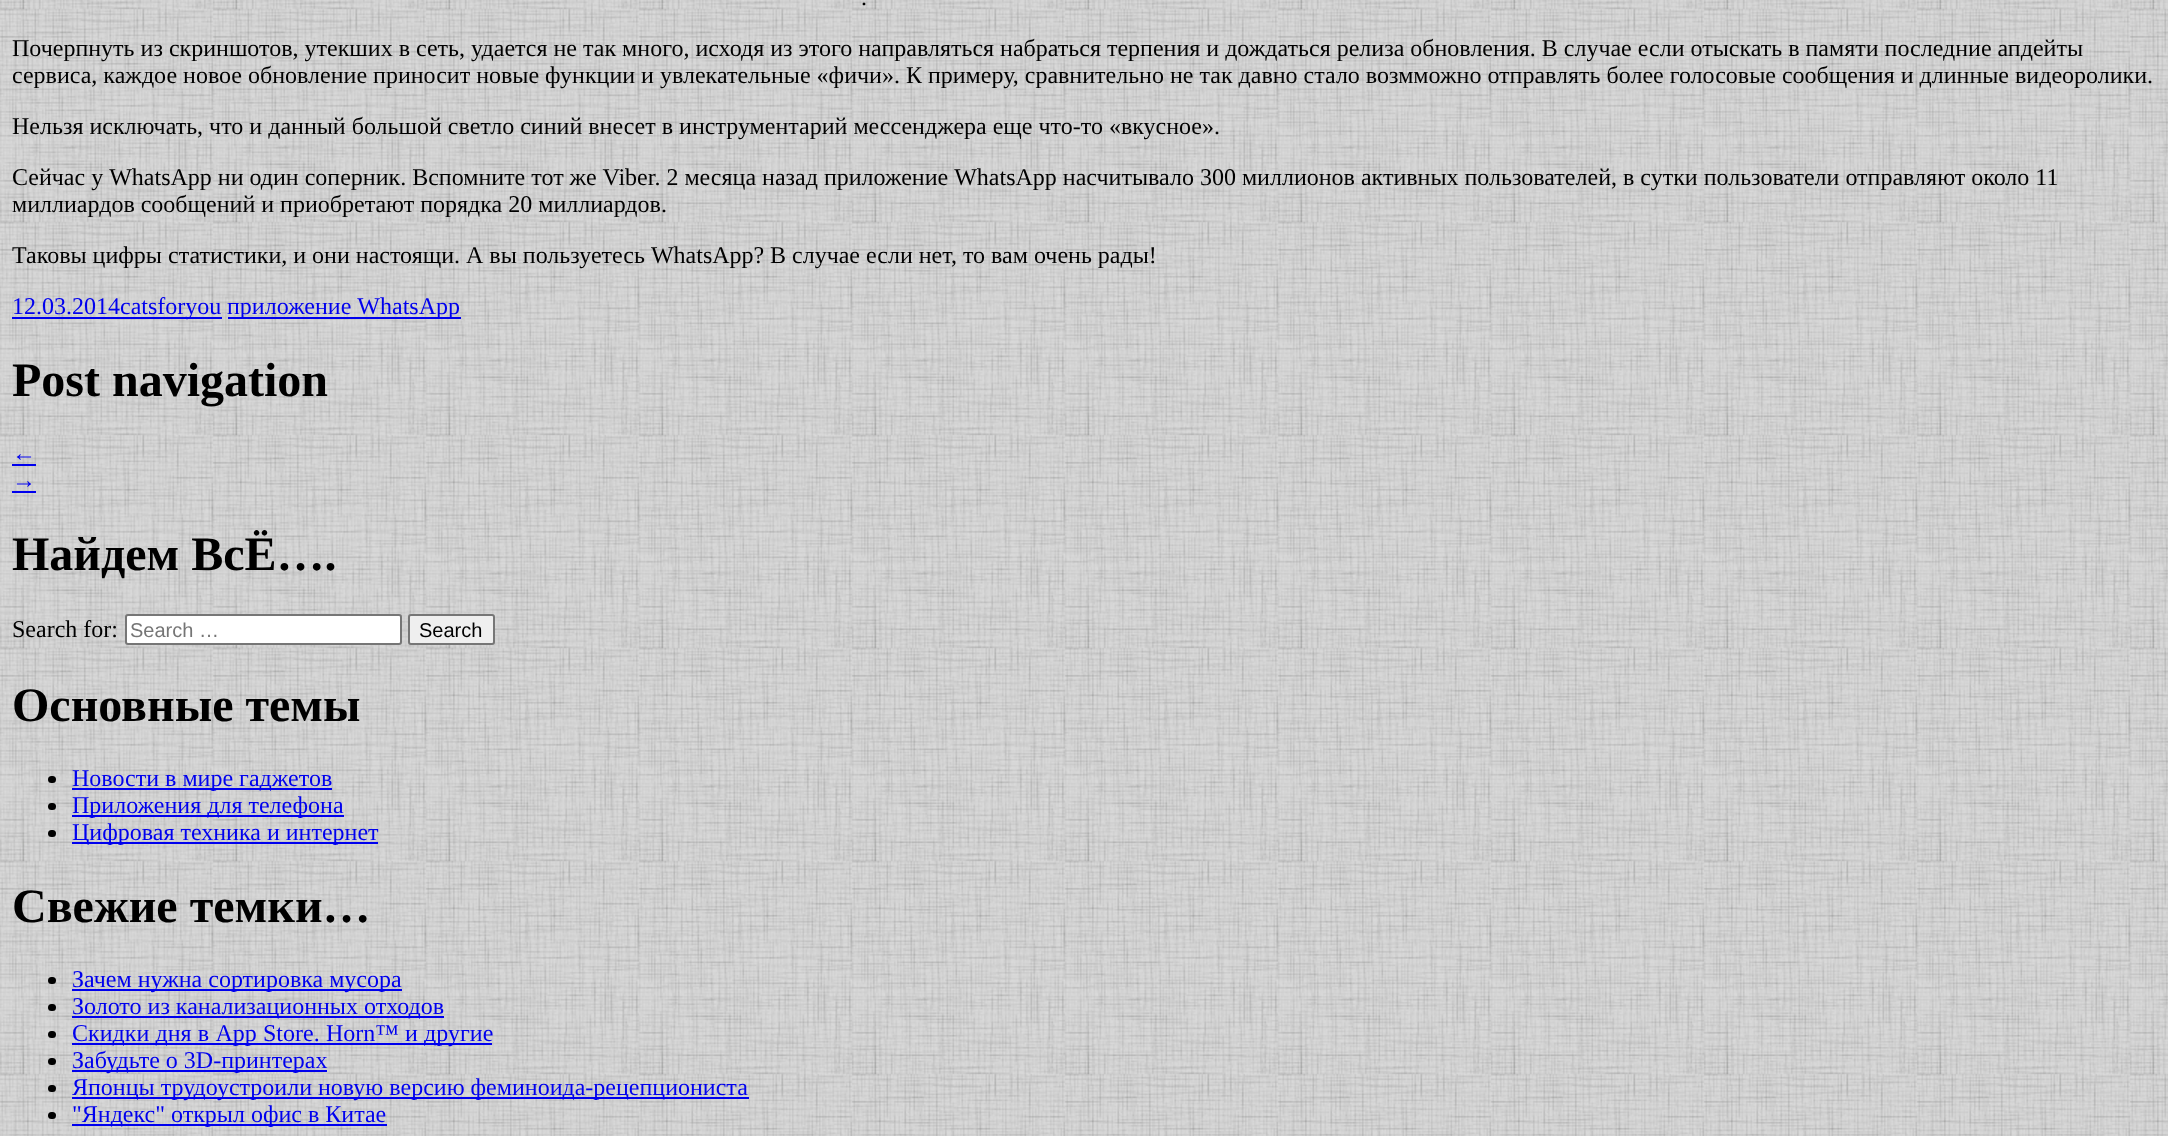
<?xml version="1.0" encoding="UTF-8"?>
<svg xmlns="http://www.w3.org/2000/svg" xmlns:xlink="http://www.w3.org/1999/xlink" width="2168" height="1136">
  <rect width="100%" height="100%" fill="#ffffff" />
  <image x="0" y="0" width="2168" height="1136" xlink:href="image1.png" />
  <rect x="12" y="317" width="210" height="2" fill="#0000ee" />
  <rect x="228" y="317" width="233" height="2" fill="#0000ee" />
  <rect x="12" y="464" width="24" height="2" fill="#0000ee" />
  <rect x="12" y="491" width="24" height="2" fill="#0000ee" />
  <rect x="126" y="615" width="275" height="29" rx="2" fill="#ffffff" stroke="#767676" stroke-width="2" />
  <rect x="409" y="615" width="85" height="29" rx="2" fill="#efefef" stroke="#767676" stroke-width="2" />
  <rect x="48" y="776" width="8" height="7" rx="3.5" fill="#000000" />
  <rect x="72" y="788" width="260" height="2" fill="#0000ee" />
  <rect x="48" y="803" width="8" height="7" rx="3.5" fill="#000000" />
  <rect x="72" y="815" width="272" height="2" fill="#0000ee" />
  <rect x="48" y="830" width="8" height="7" rx="3.5" fill="#000000" />
  <rect x="72" y="842" width="306" height="2" fill="#0000ee" />
  <rect x="48" y="977" width="8" height="7" rx="3.5" fill="#000000" />
  <rect x="72" y="989" width="330" height="2" fill="#0000ee" />
  <rect x="48" y="1004" width="8" height="7" rx="3.5" fill="#000000" />
  <rect x="72" y="1016" width="372" height="2" fill="#0000ee" />
  <rect x="48" y="1031" width="8" height="7" rx="3.5" fill="#000000" />
  <rect x="72" y="1043" width="420" height="2" fill="#0000ee" />
  <rect x="48" y="1058" width="8" height="7" rx="3.5" fill="#000000" />
  <rect x="72" y="1070" width="255" height="2" fill="#0000ee" />
  <rect x="48" y="1085" width="8" height="7" rx="3.5" fill="#000000" />
  <rect x="72" y="1097" width="677" height="2" fill="#0000ee" />
  <rect x="48" y="1112" width="8" height="7" rx="3.5" fill="#000000" />
  <rect x="72" y="1124" width="315" height="2" fill="#0000ee" />
  <text x="861" y="5" style="font-family: Liberation Serif; font-size: 24px; fill: #000000">.</text>
  <text x="12" y="56" style="font-family: Liberation Serif; font-size: 24px; fill: #000000">Почерпнуть из скриншотов, утекших в сеть, удается не так много, исходя из этого направляться набраться терпения и дождаться релиза обновления. В случае если отыскать в памяти последние апдейты</text>
  <text x="12" y="83" style="font-family: Liberation Serif; font-size: 24px; fill: #000000">сервиса, каждое новое обновление приносит новые функции и увлекательные «фичи». К примеру, сравнительно не так давно стало возмможно отправлять более голосовые сообщения и длинные видеоролики.</text>
  <text x="12" y="134" style="font-family: Liberation Serif; font-size: 24px; fill: #000000">Нельзя исключать, что и данный большой светло синий внесет в инструментарий мессенджера еще что-то «вкусное».</text>
  <text x="12" y="185" style="font-family: Liberation Serif; font-size: 24px; fill: #000000">Сейчас у WhatsApp ни один соперник. Вспомните тот же Viber. 2 месяца назад приложение WhatsApp насчитывало 300 миллионов активных пользователей, в сутки пользователи отправляют около 11</text>
  <text x="12" y="212" style="font-family: Liberation Serif; font-size: 24px; fill: #000000">миллиардов сообщений и приобретают порядка 20 миллиардов.</text>
  <text x="12" y="263" style="font-family: Liberation Serif; font-size: 24px; fill: #000000">Таковы цифры статистики, и они настоящи. А вы пользуетесь WhatsApp?</text>
  <text x="770" y="263" style="font-family: Liberation Serif; font-size: 24px; fill: #000000">В случае если нет, то вам очень рады!</text>
  <text x="12" y="314" style="font-family: Liberation Serif; font-size: 24px; fill: #0000ee">12.03.2014catsforyou</text>
  <text x="227" y="314" style="font-family: Liberation Serif; font-size: 24px; fill: #0000ee">приложение WhatsApp</text>
  <text x="12" y="396" style="font-family: Liberation Serif; font-size: 48px; font-weight: bold; fill: #000000">Post navigation</text>
  <text x="12" y="461" style="font-family: Liberation Serif; font-size: 24px; fill: #0000ee">←</text>
  <text x="12" y="488" style="font-family: Liberation Serif; font-size: 24px; fill: #0000ee">→</text>
  <text x="12" y="570" style="font-family: Liberation Serif; font-size: 48px; font-weight: bold; fill: #000000">Найдем ВсЁ….</text>
  <text x="12" y="637" style="font-family: Liberation Serif; font-size: 24px; fill: #000000">Search for:</text>
  <text x="130" y="637" style="font-family: Liberation Sans; font-size: 20px; fill: #757575">Search …</text>
  <text x="419" y="637" style="font-family: Liberation Sans; font-size: 20px; fill: #000000">Search</text>
  <text x="12" y="721" style="font-family: Liberation Serif; font-size: 48px; font-weight: bold; fill: #000000">Основные темы</text>
  <text x="72" y="786" style="font-family: Liberation Serif; font-size: 24px; fill: #0000ee">Новости в мире гаджетов</text>
  <text x="72" y="813" style="font-family: Liberation Serif; font-size: 24px; fill: #0000ee">Приложения для телефона</text>
  <text x="72" y="840" style="font-family: Liberation Serif; font-size: 24px; fill: #0000ee">Цифровая техника и интернет</text>
  <text x="12" y="922" style="font-family: Liberation Serif; font-size: 48px; font-weight: bold; fill: #000000">Свежие темки…</text>
  <text x="72" y="987" style="font-family: Liberation Serif; font-size: 24px; fill: #0000ee">Зачем нужна сортировка мусора</text>
  <text x="72" y="1014" style="font-family: Liberation Serif; font-size: 24px; fill: #0000ee">Золото из канализационных отходов</text>
  <text x="72" y="1041" word-spacing="0.25" style="font-family: Liberation Serif; font-size: 24px; fill: #0000ee">Скидки дня в App Store. Horn™ и другие</text>
  <text x="72" y="1068" style="font-family: Liberation Serif; font-size: 24px; fill: #0000ee">Забудьте о 3D-принтерах</text>
  <text x="72" y="1095" style="font-family: Liberation Serif; font-size: 24px; fill: #0000ee">Японцы трудоустроили новую версию феминоида-рецепциониста</text>
  <text x="72" y="1122" style="font-family: Liberation Serif; font-size: 24px; fill: #0000ee">"Яндекс" открыл офис в Китае</text>
</svg>
